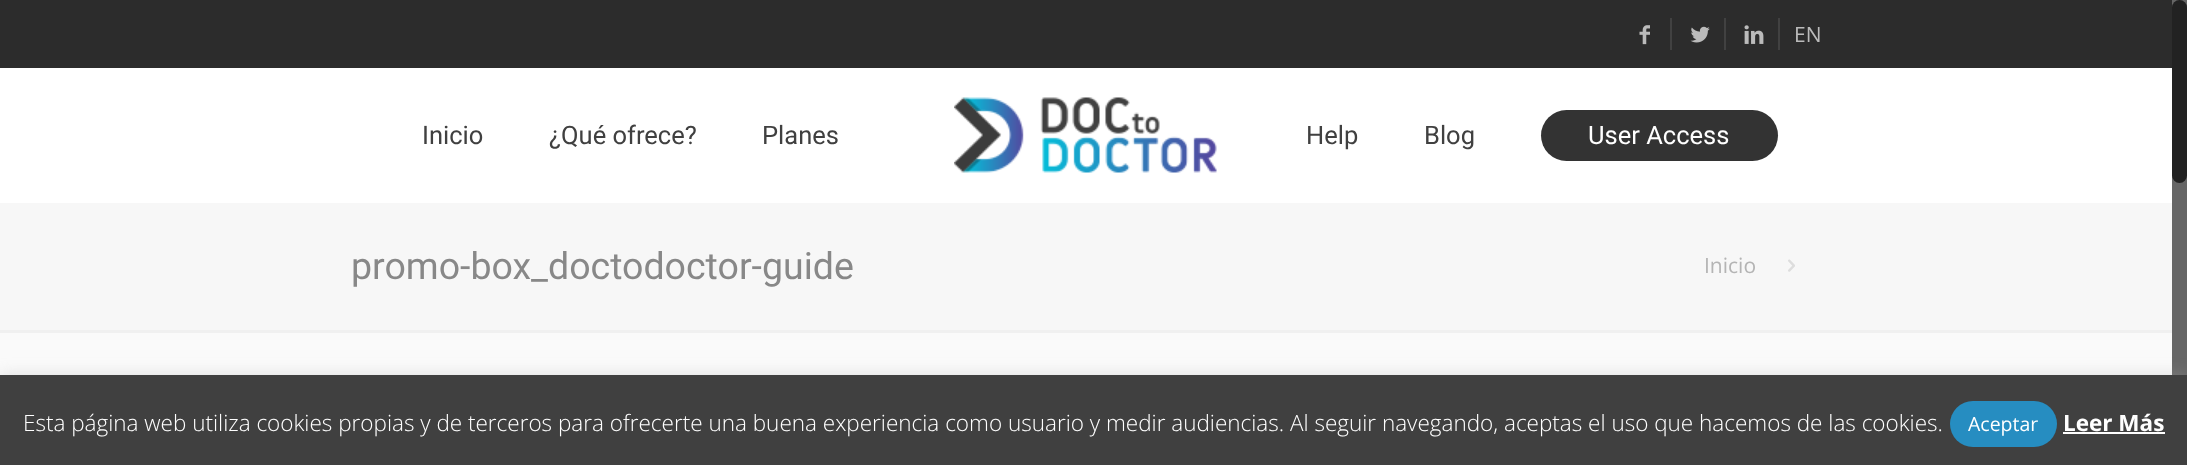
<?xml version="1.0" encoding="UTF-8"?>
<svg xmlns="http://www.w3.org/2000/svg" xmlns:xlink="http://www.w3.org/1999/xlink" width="2187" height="465">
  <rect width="100%" height="100%" fill="#fafafa" />
  <rect width="2172" height="68" fill="#2c2c2c" />
  <rect x="1670" y="18" width="2" height="32" fill="#414141" />
  <image x="1639" y="25" width="11" height="20" xlink:href="image1.png" />
  <rect x="1724" y="18" width="2" height="32" fill="#414141" />
  <image x="1690" y="26" width="20" height="17" xlink:href="image2.png" />
  <rect x="1778" y="18" width="2" height="32" fill="#414141" />
  <image x="1744" y="25" width="20" height="19" xlink:href="image3.png" />
  <rect y="68" width="2172" height="135" fill="#ffffff" />
  <image x="954" y="97" width="263" height="76" xlink:href="image4.png" />
  <rect x="1541" y="110" width="237" height="51" rx="25.5" fill="#333333" />
  <rect y="203" width="2172" height="127" fill="#f7f7f7" />
  <image x="1788" y="259" width="7" height="13" xlink:href="image5.png" />
  <rect y="330" width="2172" height="3" fill="#f0f0f0" />
  <rect x="2172" width="15" height="375" fill="#666666" />
  <rect x="2172" width="15" height="183" rx="7.5" fill="#222222" />
  <rect y="374" width="2187" height="90" fill="#acabab" fill-opacity="0.3" filter="blur(7.5px)" />
  <rect y="375" width="2187" height="90" fill="#404040" />
  <rect x="1950" y="401" width="107" height="46" rx="23" fill="#268dc1" />
  <rect x="2063" y="432" width="102" height="2" fill="#ffffff" />
  <text x="1794" y="42" style="font-family: Open Sans; font-size: 21px; fill: #bbbbbb">EN</text>
  <text x="422" y="144" style="font-family: Roboto; font-size: 25.5px; fill: #404040">Inicio</text>
  <text x="549" y="144" style="font-family: Roboto; font-size: 25.5px; fill: #404040">¿Qué ofrece?</text>
  <text x="762" y="144" style="font-family: Roboto; font-size: 25.5px; fill: #404040">Planes</text>
  <text x="1306" y="144" style="font-family: Roboto; font-size: 25.5px; fill: #404040">Help</text>
  <text x="1424" y="144" style="font-family: Roboto; font-size: 25.5px; fill: #404040">Blog</text>
  <text x="1588" y="144" style="font-family: Roboto; font-size: 25.5px; fill: #ffffff">User Access</text>
  <text x="351" y="279" style="font-family: Roboto; font-size: 37.5px; fill: #888888">promo-box_doctodoctor-guide</text>
  <text x="1704" y="273" style="font-family: Open Sans; font-size: 21px; fill: #b4b4b4">Inicio</text>
  <text x="23" y="431" style="font-family: Open Sans; font-size: 22.5px; font-weight: 300; fill: #ffffff">Esta página web utiliza cookies propias y de terceros para ofrecerte una buena experiencia como usuario y medir audiencias. Al seguir navegando, aceptas el uso que hacemos de las cookies.</text>
  <text x="1968" y="431" style="font-family: Open Sans; font-size: 19.5px; fill: #ffffff">Aceptar</text>
  <text x="2063" y="431" style="font-family: Open Sans; font-size: 22.5px; font-weight: bold; fill: #ffffff">Leer Más</text>
</svg>
